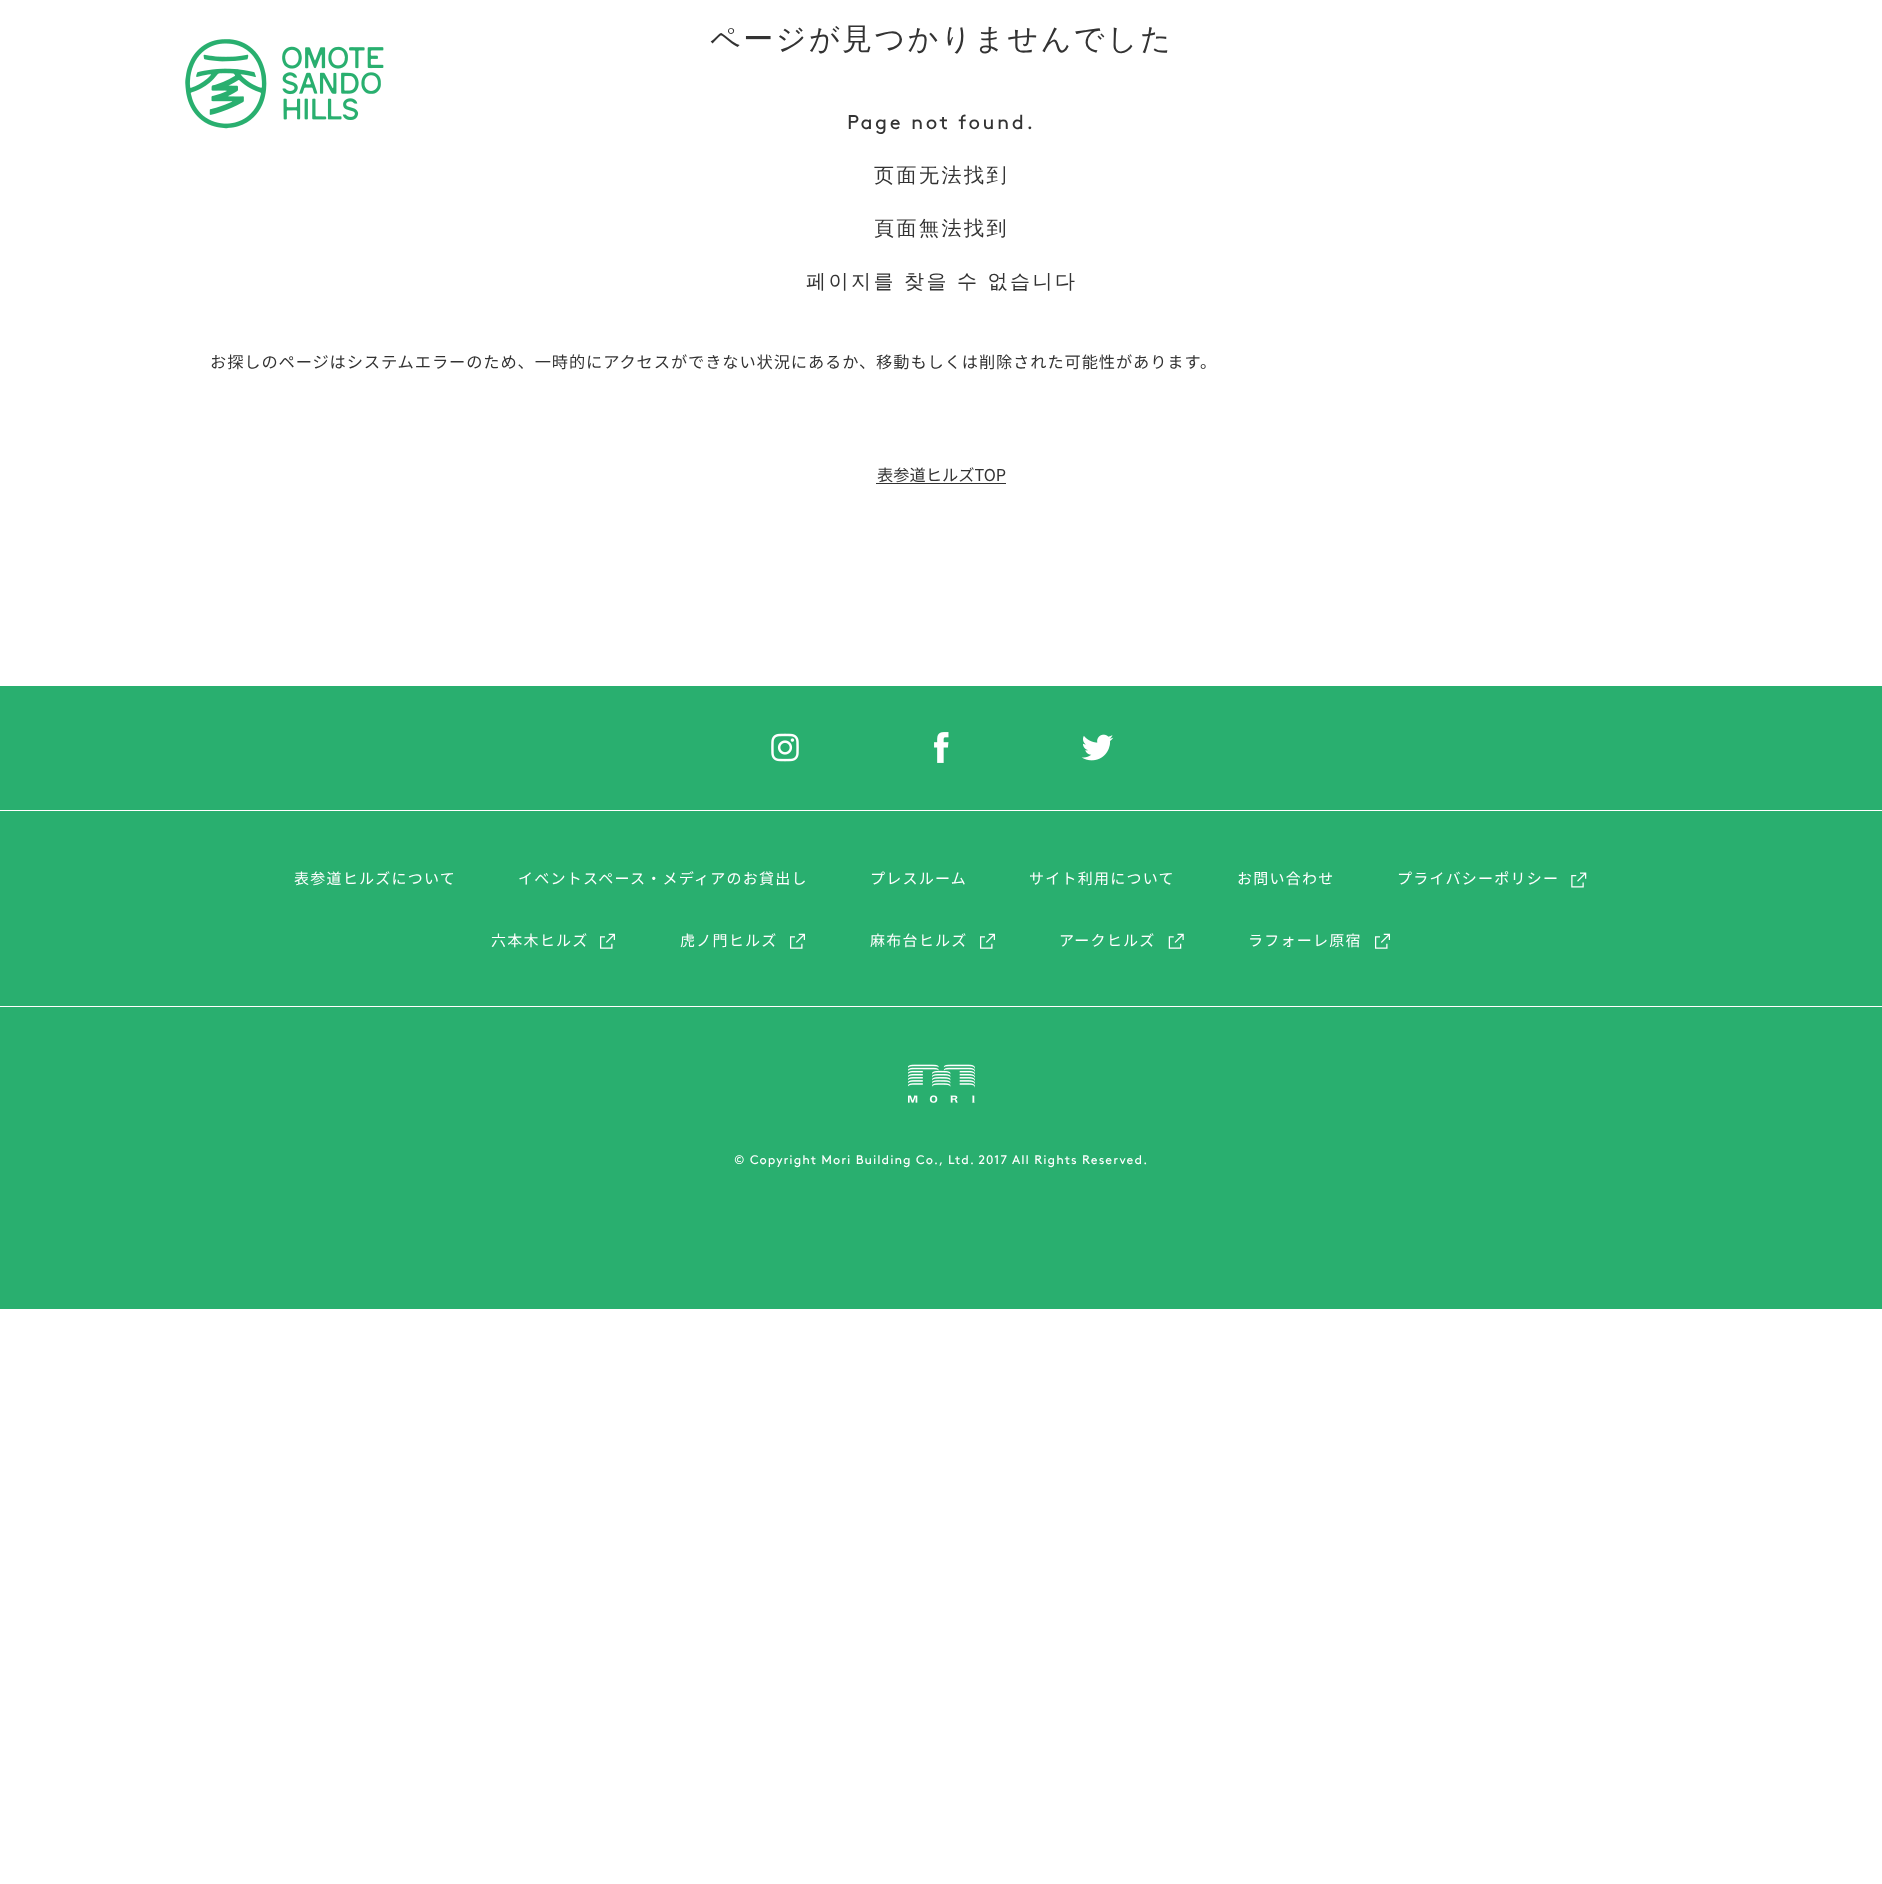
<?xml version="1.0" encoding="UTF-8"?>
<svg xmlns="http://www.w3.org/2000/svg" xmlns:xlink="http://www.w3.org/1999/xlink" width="1882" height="1884">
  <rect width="100%" height="100%" fill="#ffffff" />
  <rect x="876" y="483" width="130" height="1" fill="#333333" />
  <image x="185" y="39" width="199" height="90" xlink:href="image1.png" />
  <rect y="686" width="1882" height="623" fill="#29af6f" />
  <image x="771" y="733" width="28" height="29" xlink:href="image3.png" />
  <image x="934" y="732" width="15" height="31" xlink:href="image4.png" />
  <image x="1081" y="734" width="33" height="27" xlink:href="image5.png" />
  <rect y="810" width="1882" height="1" fill="#ffffff" />
  <image x="1571" y="872" width="16" height="16" xlink:href="image6.png" />
  <image x="600" y="933" width="15" height="16" xlink:href="image7.png" />
  <image x="790" y="933" width="15" height="16" xlink:href="image7.png" />
  <image x="980" y="933" width="15" height="16" xlink:href="image7.png" />
  <image x="1168" y="933" width="16" height="16" xlink:href="image8.png" />
  <image x="1375" y="933" width="15" height="16" xlink:href="image7.png" />
  <rect y="1006" width="1882" height="1" fill="#ffffff" />
  <image x="908" y="1064" width="67" height="39" xlink:href="image9.png" />
  <text x="710" y="49" style="font-family: WenQuanYi Zen Hei; font-size: 30px; font-weight: 500; letter-spacing: 2.5px; fill: #333333">ページが見つかりませんでした</text>
  <text x="847" y="129" style="font-family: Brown; font-size: 20px; letter-spacing: 2.5px; fill: #333333">Page not found.</text>
  <text x="874" y="182" style="font-family: WenQuanYi Zen Hei; font-size: 20px; font-weight: 500; letter-spacing: 2.5px; fill: #333333">页面无法找到</text>
  <text x="874" y="235" style="font-family: WenQuanYi Zen Hei; font-size: 20px; font-weight: 500; letter-spacing: 2.5px; fill: #333333">頁面無法找到</text>
  <text x="806" y="288" word-spacing="-0.5" style="font-family: WenQuanYi Zen Hei; font-size: 20px; font-weight: 500; letter-spacing: 2.5px; fill: #333333">페이지를 찾을 수 없습니다</text>
  <text x="210" y="368" style="font-family: Noto Sans JP; font-size: 16.25px; letter-spacing: 0.88px; fill: #333333">お探しのページはシステムエラーのため、一時的にアクセスができない状況にあるか、移動もしくは削除された可能性があります。</text>
  <text x="877" y="481" style="font-family: Noto Sans JP; font-size: 16.25px; fill: #333333">表参道ヒルズTOP</text>
  <image x="999" y="166" width="5" height="19" xlink:href="image2.png" />
  <text x="294" y="884" style="font-family: Noto Sans JP; font-size: 15px; letter-spacing: 1.25px; fill: #ffffff">表参道ヒルズについて</text>
  <text x="518" y="884" style="font-family: Noto Sans JP; font-size: 15px; letter-spacing: 1.25px; fill: #ffffff">イベントスペース・メディアのお貸出し</text>
  <text x="870" y="884" style="font-family: Noto Sans JP; font-size: 15px; letter-spacing: 1.25px; fill: #ffffff">プレスルーム</text>
  <text x="1029" y="884" style="font-family: Noto Sans JP; font-size: 15px; letter-spacing: 1.25px; fill: #ffffff">サイト利用について</text>
  <text x="1237" y="884" style="font-family: Noto Sans JP; font-size: 15px; letter-spacing: 1.25px; fill: #ffffff">お問い合わせ</text>
  <text x="1397" y="884" style="font-family: Noto Sans JP; font-size: 15px; letter-spacing: 1.25px; fill: #ffffff">プライバシーポリシー</text>
  <text x="491" y="946" style="font-family: Noto Sans JP; font-size: 15px; letter-spacing: 1.25px; fill: #ffffff">六本木ヒルズ</text>
  <text x="680" y="946" style="font-family: Noto Sans JP; font-size: 15px; letter-spacing: 1.25px; fill: #ffffff">虎ノ門ヒルズ</text>
  <text x="870" y="946" style="font-family: Noto Sans JP; font-size: 15px; letter-spacing: 1.25px; fill: #ffffff">麻布台ヒルズ</text>
  <text x="1059" y="946" style="font-family: Noto Sans JP; font-size: 15px; letter-spacing: 1.25px; fill: #ffffff">アークヒルズ</text>
  <text x="1248" y="946" style="font-family: Noto Sans JP; font-size: 15px; letter-spacing: 1.25px; fill: #ffffff">ラフォーレ原宿</text>
  <text x="734" y="1164" style="font-family: Brown; font-size: 12.5px; letter-spacing: 1px; fill: #ffffff">© Copyright Mori Building Co., Ltd. 2017 All Rights Reserved.</text>
</svg>
